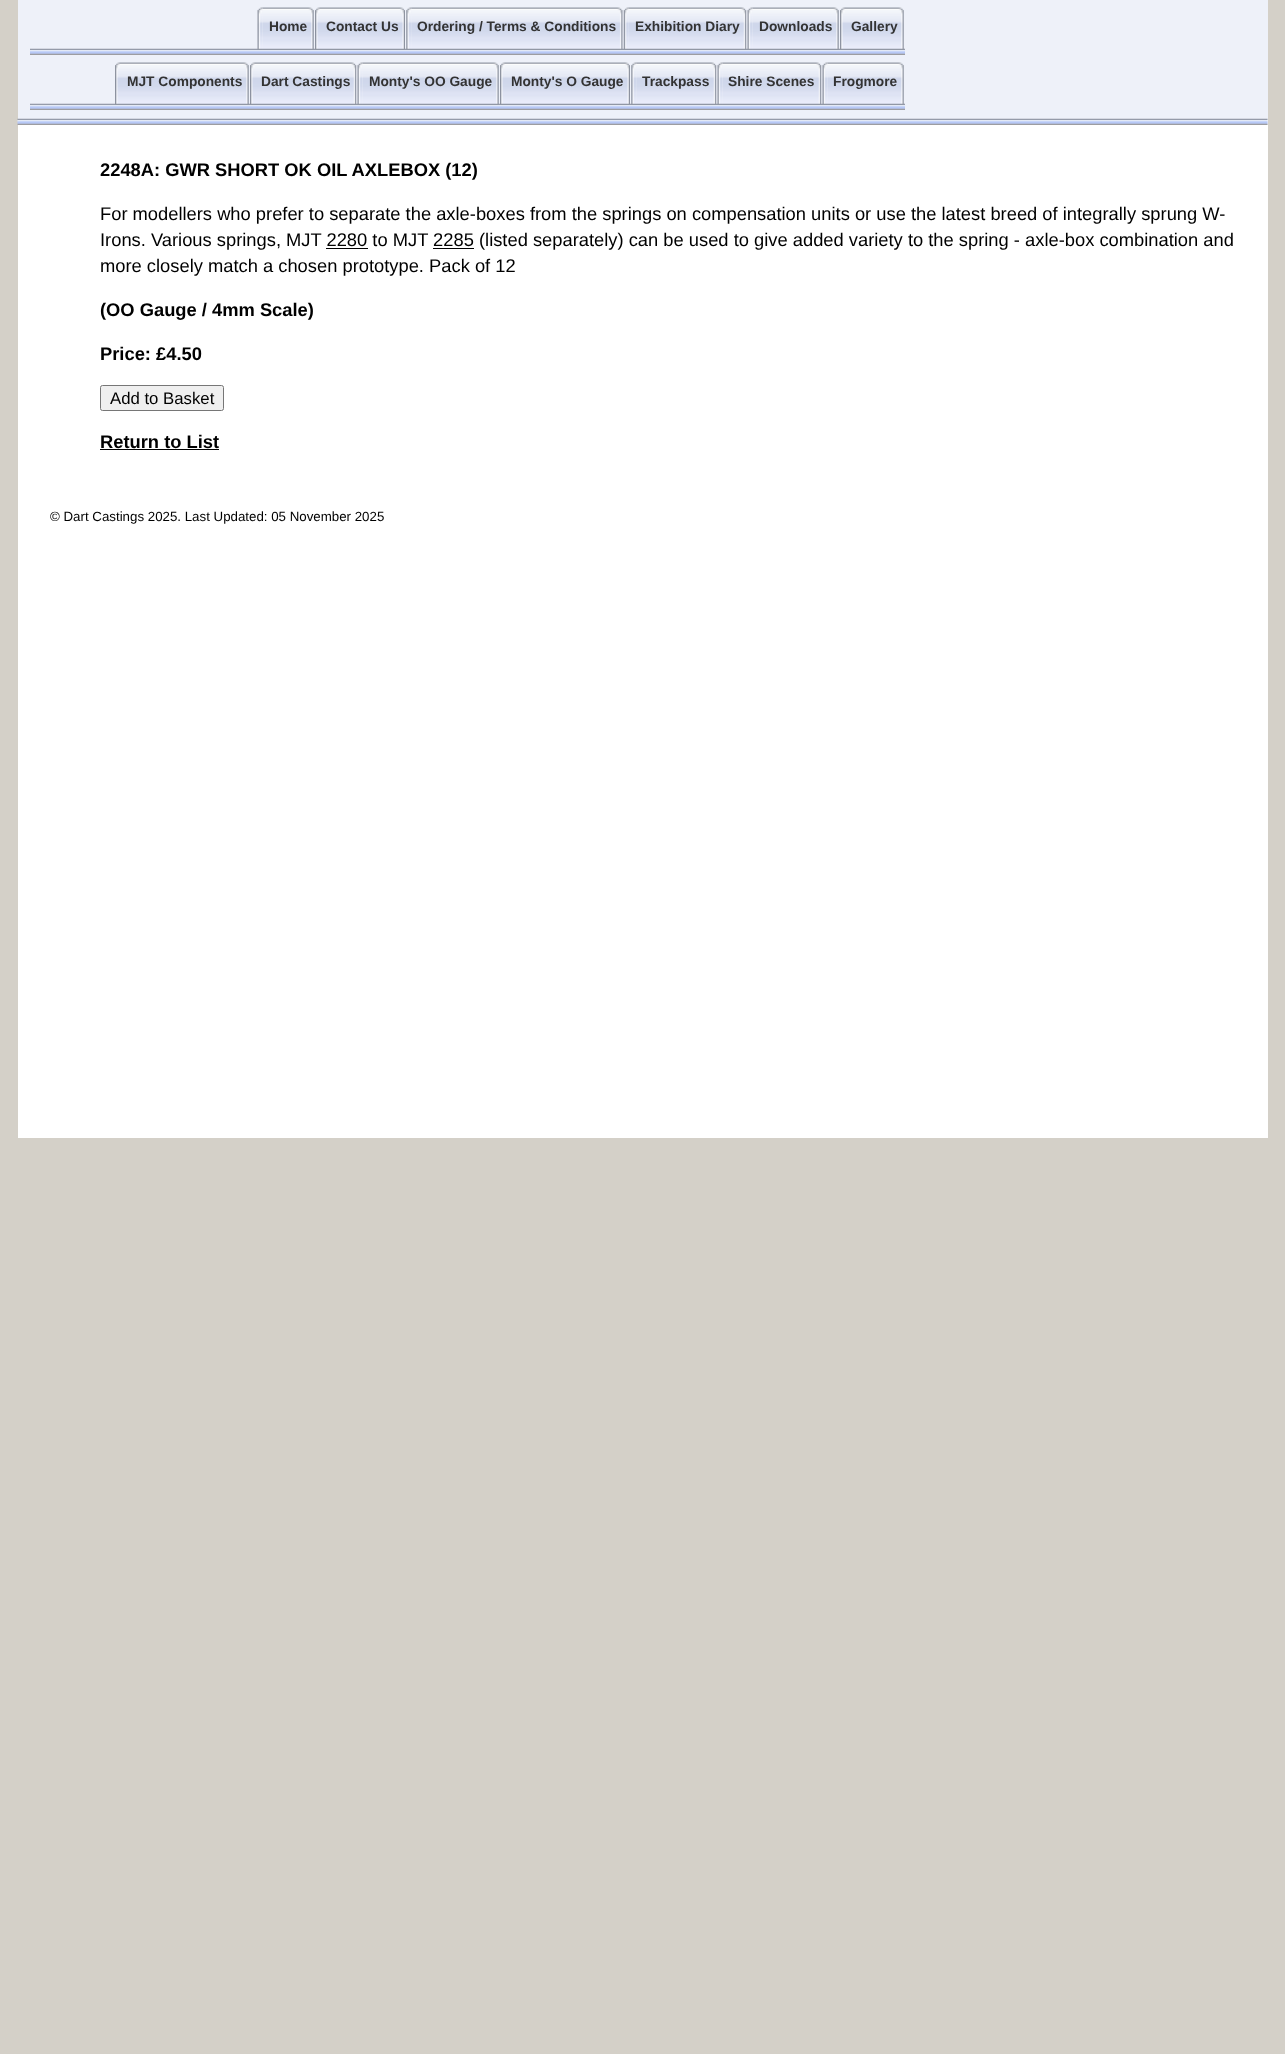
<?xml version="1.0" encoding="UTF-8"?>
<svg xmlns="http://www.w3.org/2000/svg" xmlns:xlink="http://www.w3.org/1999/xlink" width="1285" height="2054">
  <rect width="100%" height="100%" fill="#d4d0c8" />
  <rect x="18" width="1250" height="125" fill="#eef1f9" />
  <image x="17" y="118" width="1251" height="7" xlink:href="image1.png" />
  <image x="30" y="48" width="875" height="7" xlink:href="image2.png" />
  <image x="257" y="7" width="6" height="43" xlink:href="image3.png" />
  <image x="262" y="7" width="52" height="43" xlink:href="image4.png" />
  <image x="315" y="7" width="5" height="43" xlink:href="image5.png" />
  <image x="320" y="7" width="85" height="43" xlink:href="image6.png" />
  <image x="406" y="7" width="6" height="43" xlink:href="image7.png" />
  <image x="411" y="7" width="212" height="43" xlink:href="image8.png" />
  <image x="623" y="7" width="6" height="43" xlink:href="image9.png" />
  <image x="628" y="7" width="119" height="43" xlink:href="image10.png" />
  <image x="747" y="7" width="6" height="43" xlink:href="image3.png" />
  <image x="752" y="7" width="87" height="43" xlink:href="image11.png" />
  <image x="840" y="7" width="5" height="43" xlink:href="image12.png" />
  <image x="845" y="7" width="59" height="43" xlink:href="image13.png" />
  <image x="30" y="103" width="875" height="7" xlink:href="image2.png" />
  <image x="115" y="62" width="5" height="43" xlink:href="image5.png" />
  <image x="120" y="62" width="129" height="43" xlink:href="image14.png" />
  <image x="250" y="62" width="5" height="43" xlink:href="image5.png" />
  <image x="255" y="62" width="102" height="43" xlink:href="image15.png" />
  <image x="357" y="62" width="6" height="43" xlink:href="image3.png" />
  <image x="362" y="62" width="137" height="43" xlink:href="image16.png" />
  <image x="500" y="62" width="5" height="43" xlink:href="image12.png" />
  <image x="505" y="62" width="125" height="43" xlink:href="image17.png" />
  <image x="631" y="62" width="6" height="43" xlink:href="image7.png" />
  <image x="636" y="62" width="81" height="43" xlink:href="image18.png" />
  <image x="717" y="62" width="6" height="43" xlink:href="image3.png" />
  <image x="722" y="62" width="100" height="43" xlink:href="image19.png" />
  <image x="822" y="62" width="6" height="43" xlink:href="image3.png" />
  <image x="827" y="62" width="77" height="43" xlink:href="image20.png" />
  <rect x="18" y="125" width="1250" height="1013" fill="#ffffff" />
  <rect x="326" y="248" width="42" height="1" fill="#000000" />
  <rect x="433" y="248" width="41" height="1" fill="#000000" />
  <rect x="100.5" y="385.5" width="123" height="25" rx="2" fill="#efefef" stroke="#767676" />
  <rect x="100" y="449" width="119" height="1" fill="#000000" />
  <text x="269" y="31" style="font-family: Liberation Sans; font-size: 13.75px; font-weight: bold; fill: #333333">Home</text>
  <text x="326" y="31" style="font-family: Liberation Sans; font-size: 13.75px; font-weight: bold; fill: #333333">Contact Us</text>
  <text x="417" y="31" style="font-family: Liberation Sans; font-size: 13.75px; font-weight: bold; fill: #333333">Ordering / Terms &amp; Conditions</text>
  <text x="635" y="31" style="font-family: Liberation Sans; font-size: 13.75px; font-weight: bold; fill: #333333">Exhibition Diary</text>
  <text x="759" y="31" style="font-family: Liberation Sans; font-size: 13.75px; font-weight: bold; fill: #333333">Downloads</text>
  <text x="851" y="31" style="font-family: Liberation Sans; font-size: 13.75px; font-weight: bold; fill: #333333">Gallery</text>
  <text x="127" y="86" style="font-family: Liberation Sans; font-size: 13.75px; font-weight: bold; fill: #333333">MJT Components</text>
  <text x="261" y="86" style="font-family: Liberation Sans; font-size: 13.75px; font-weight: bold; fill: #333333">Dart Castings</text>
  <text x="369" y="86" style="font-family: Liberation Sans; font-size: 13.75px; font-weight: bold; fill: #333333">Monty's OO Gauge</text>
  <text x="511" y="86" style="font-family: Liberation Sans; font-size: 13.75px; font-weight: bold; fill: #333333">Monty's O Gauge</text>
  <text x="642" y="86" style="font-family: Liberation Sans; font-size: 13.75px; font-weight: bold; fill: #333333">Trackpass</text>
  <text x="728" y="86" style="font-family: Liberation Sans; font-size: 13.75px; font-weight: bold; fill: #333333">Shire Scenes</text>
  <text x="833" y="86" style="font-family: Liberation Sans; font-size: 13.75px; font-weight: bold; fill: #333333">Frogmore</text>
  <text x="100" y="176" style="font-family: Liberation Sans; font-size: 18.33px; font-weight: bold; fill: #000000">2248A: GWR SHORT OK OIL AXLEBOX (12)</text>
  <text x="100" y="220" style="font-family: Liberation Sans; font-size: 18.33px; fill: #000000">For modellers who prefer to separate the axle-boxes from the springs on compensation units or use the latest breed of integrally sprung W-</text>
  <text x="100" y="246" style="font-family: Liberation Sans; font-size: 18.33px; fill: #000000">Irons. Various springs, MJT 2280 to MJT 2285 (listed separately) can be used to give added variety to the spring - axle-box combination and</text>
  <text x="100" y="272" style="font-family: Liberation Sans; font-size: 18.33px; fill: #000000">more closely match a chosen prototype. Pack of 12</text>
  <text x="100" y="316" style="font-family: Liberation Sans; font-size: 18.33px; font-weight: bold; fill: #000000">(OO Gauge / 4mm Scale)</text>
  <text x="100" y="360" style="font-family: Liberation Sans; font-size: 18.33px; font-weight: bold; fill: #000000">Price: £4.50</text>
  <text x="110" y="404" style="font-family: Liberation Sans; font-size: 16.75px; fill: #000000">Add to Basket</text>
  <text x="100" y="448" style="font-family: Liberation Sans; font-size: 18.33px; font-weight: bold; fill: #000000">Return to List</text>
  <text x="50" y="521" style="font-family: Liberation Sans; font-size: 13.3px; fill: #000000">© Dart Castings 2025. Last Updated: 05 November 2025</text>
</svg>
